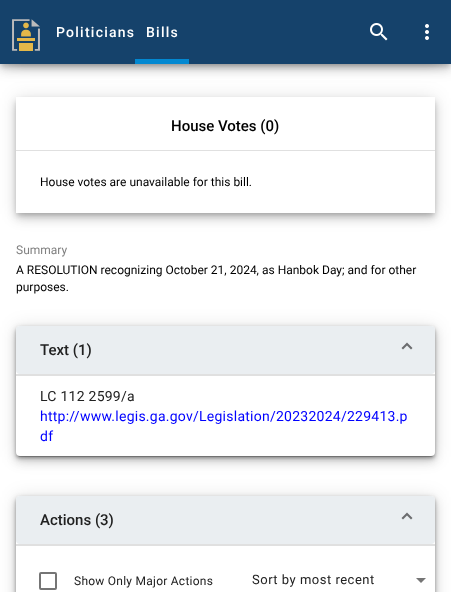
<?xml version="1.0" encoding="UTF-8"?>
<svg xmlns="http://www.w3.org/2000/svg" xmlns:xlink="http://www.w3.org/1999/xlink" width="451" height="592">
  <defs>
    <clipPath id="clip1"><path d="M 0 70 h 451 v 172 h -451 z m 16 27 h 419 v 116 h -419 z" clip-rule="evenodd" /></clipPath>
    <clipPath id="clip2"><path d="M 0 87 h 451 v 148 h -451 z m 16 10 h 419 v 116 h -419 z" clip-rule="evenodd" /></clipPath>
    <clipPath id="clip3"><path d="M 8 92 h 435 v 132 h -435 z m 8 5 h 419 v 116 h -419 z" clip-rule="evenodd" /></clipPath>
  </defs>
  <rect width="100%" height="100%" fill="#ffffff" />
  <rect y="1" width="451" height="64" fill="#000000" fill-opacity="0.12" filter="blur(9px)" />
  <rect y="6" width="451" height="64" fill="#000000" fill-opacity="0.14" filter="blur(5px)" />
  <rect x="1" y="4" width="449" height="62" fill="#000000" fill-opacity="0.2" filter="blur(2.5px)" />
  <rect x="16" y="-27" width="419" height="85" fill="#000000" fill-opacity="0.12" filter="blur(9px)" />
  <rect x="16" y="-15" width="419" height="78" fill="#000000" fill-opacity="0.14" filter="blur(5px)" />
  <rect width="451" height="64" fill="#15426b" />
  <image x="12" y="19" width="28" height="32" xlink:href="image1.png" />
  <rect x="135" y="59" width="54" height="5" fill="#0288d1" />
  <image x="370" y="23" width="18" height="18" xlink:href="image2.png" />
  <image x="425" y="24" width="4" height="16" xlink:href="image3.png" />
  <g clip-path="url(#clip1)">
    <rect x="16" y="98" width="419" height="116" fill="#000000" fill-opacity="0.12" filter="blur(9px)" />
  </g>
  <g clip-path="url(#clip2)">
    <rect x="16" y="103" width="419" height="116" fill="#000000" fill-opacity="0.14" filter="blur(5px)" />
  </g>
  <g clip-path="url(#clip3)">
    <rect x="17" y="101" width="417" height="114" fill="#000000" fill-opacity="0.2" filter="blur(2.5px)" />
  </g>
  <rect x="16" y="150" width="419" height="1" fill="#e0e0e0" />
  <rect x="16" y="327" width="419" height="130" fill="#000000" fill-opacity="0.12" filter="blur(9px)" />
  <rect x="16" y="332" width="419" height="130" fill="#000000" fill-opacity="0.14" filter="blur(5px)" />
  <rect x="17" y="330" width="417" height="128" fill="#000000" fill-opacity="0.2" filter="blur(2.5px)" />
  <rect x="16" y="327" width="419" height="130" rx="4" fill="#000000" fill-opacity="0.12" filter="blur(2.5px)" />
  <rect x="16" y="328" width="419" height="130" rx="4" fill="#000000" fill-opacity="0.14" filter="blur(1px)" />
  <rect x="18" y="331" width="415" height="126" rx="2" fill="#000000" fill-opacity="0.2" filter="blur(0.5px)" />
  <rect x="16" y="326" width="419" height="130" rx="4" fill="#ffffff" />
  <rect x="16" y="326" width="419" height="48" rx="4" fill="#eaeef1" />
  <path d="M 401.5 348 l 5.5 -5.5 v 3 l -4 4 z m 5.5 -5.5 l 5.5 5.5 l -1.5 1.5 l -4 -4 z" fill="#6c6d6f" />
  <rect x="16" y="374" width="419" height="2" fill="#e0e0e0" />
  <rect x="16" y="497" width="419" height="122" fill="#000000" fill-opacity="0.12" filter="blur(9px)" />
  <rect x="16" y="502" width="419" height="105" fill="#000000" fill-opacity="0.14" filter="blur(5px)" />
  <rect x="17" y="500" width="417" height="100" fill="#000000" fill-opacity="0.2" filter="blur(2.5px)" />
  <rect x="16" y="497" width="419" height="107" rx="4" fill="#000000" fill-opacity="0.12" filter="blur(2.5px)" />
  <rect x="16" y="498" width="419" height="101" rx="4" fill="#000000" fill-opacity="0.14" filter="blur(1px)" />
  <rect x="16" y="496" width="419" height="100" rx="4" fill="#ffffff" />
  <rect x="16" y="496" width="419" height="48" rx="4" fill="#eaeef1" />
  <path d="M 401.5 518 l 5.5 -5.5 v 3 l -4 4 z m 5.5 -5.5 l 5.5 5.5 l -1.5 1.5 l -4 -4 z" fill="#6c6d6f" />
  <rect x="16" y="544" width="419" height="2" fill="#e0e0e0" />
  <rect x="40" y="573" width="16" height="16" rx="1" fill="none" stroke="#757575" stroke-width="2" />
  <path d="M 416 578 l 5 5 l 5 -5 z" fill="#757575" />
  <text x="56" y="37" style="font-family: Roboto; font-size: 14px; font-weight: 500; letter-spacing: 1.25px; fill: #ffffff">Politicians</text>
  <text x="146" y="37" style="font-family: Roboto; font-size: 14px; font-weight: 500; letter-spacing: 1.25px; fill: #ffffff">Bills</text>
  <text x="171" y="131" style="font-family: Roboto; font-size: 15px; font-weight: 500; fill: #000000">House Votes (0)</text>
  <text x="40" y="186" style="font-family: Roboto; font-size: 12px; fill: #000000">House votes are unavailable for this bill.</text>
  <text x="16" y="254" style="font-family: Roboto; font-size: 12px; fill: #808080">Summary</text>
  <text x="16" y="274" style="font-family: Roboto; font-size: 12px; fill: #000000">A RESOLUTION recognizing October 21, 2024, as Hanbok Day; and for other</text>
  <text x="16" y="291" style="font-family: Roboto; font-size: 12px; fill: #000000">purposes.</text>
  <text x="40" y="355" style="font-family: Roboto; font-size: 15px; font-weight: 500; fill: #212121">Text (1)</text>
  <text x="40" y="401" style="font-family: Roboto; font-size: 14px; letter-spacing: 0.25px; fill: #212121">LC 112 2599/a</text>
  <text x="40" y="421" style="font-family: Roboto; font-size: 14px; letter-spacing: 0.25px; fill: #0000ff">http://www.legis.ga.gov/Legislation/20232024/229413.p</text>
  <text x="40" y="441" style="font-family: Roboto; font-size: 14px; letter-spacing: 0.25px; fill: #0000ff">df</text>
  <text x="40" y="525" style="font-family: Roboto; font-size: 15px; font-weight: 500; fill: #212121">Actions (3)</text>
  <text x="74" y="585" style="font-family: Roboto; font-size: 12px; letter-spacing: 0.25px; fill: #212121">Show Only Major Actions</text>
  <text x="252" y="584" style="font-family: Roboto; font-size: 13px; letter-spacing: 0.5px; fill: #212121">Sort by most recent</text>
</svg>
